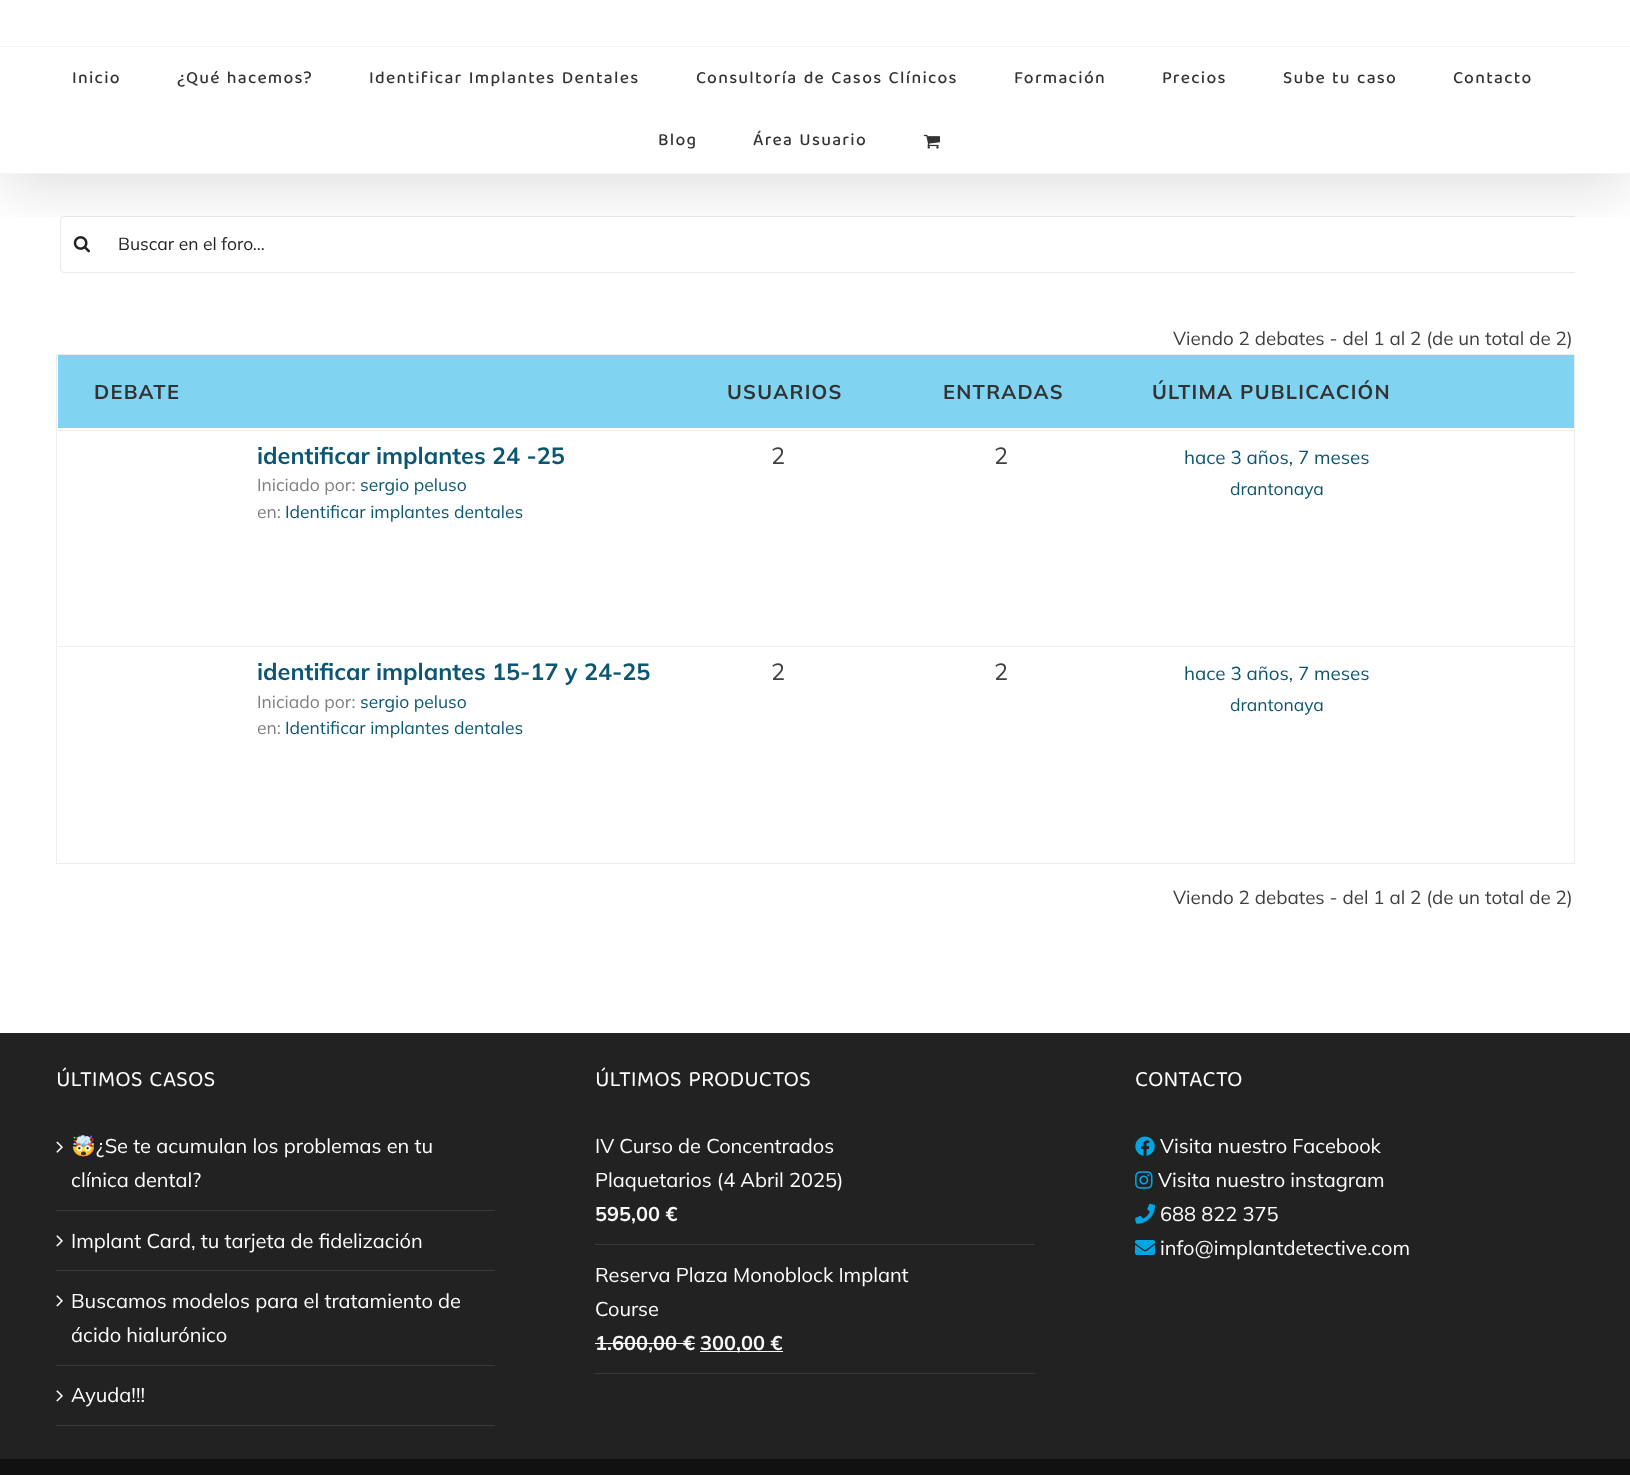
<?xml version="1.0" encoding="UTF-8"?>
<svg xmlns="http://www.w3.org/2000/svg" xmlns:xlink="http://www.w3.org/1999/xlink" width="1630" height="1475">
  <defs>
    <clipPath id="clip1"><rect x="56" y="211" width="1519" height="65" /></clipPath>
    <clipPath id="clip2"><rect x="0" y="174" width="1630" height="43" /></clipPath>
  </defs>
  <rect width="100%" height="100%" fill="#ffffff" />
  <g clip-path="url(#clip1)">
    <rect x="60.5" y="216.5" width="1518" height="56" rx="3.5" fill="none" stroke="#eaeaea" />
  </g>
  <image x="73" y="236" width="17" height="17" xlink:href="image2.png" />
  <g clip-path="url(#clip2)">
    <rect x="3" y="15" width="1625" height="169" fill="#000000" fill-opacity="0.14" filter="blur(31px)" />
  </g>
  <rect y="46" width="1630" height="1" fill="#f4f4f4" />
  <rect y="173" width="1630" height="1" fill="#f4f4f4" />
  <image x="923" y="134" width="17" height="15" xlink:href="image1.png" />
  <rect x="56.5" y="354.5" width="1518" height="509" fill="none" stroke="#ededed" />
  <rect x="58" y="355" width="1516" height="73" fill="#80d3f1" />
  <rect x="58" y="430" width="1516" height="1" fill="#ededed" />
  <rect x="58" y="646" width="1516" height="1" fill="#ededed" />
  <rect y="1033" width="1630" height="426" fill="#222222" />
  <rect x="56" y="1210" width="439" height="1" fill="#3a3a3a" />
  <image x="56" y="1141" width="7" height="12" xlink:href="image3.png" />
  <rect x="56" y="1270" width="439" height="1" fill="#3a3a3a" />
  <image x="56" y="1235" width="7" height="12" xlink:href="image4.png" />
  <rect x="56" y="1365" width="439" height="1" fill="#3a3a3a" />
  <image x="56" y="1295" width="7" height="12" xlink:href="image4.png" />
  <rect x="56" y="1425" width="439" height="1" fill="#3a3a3a" />
  <image x="56" y="1390" width="7" height="12" xlink:href="image4.png" />
  <rect x="595" y="1244" width="440" height="1" fill="#3a3a3a" />
  <rect x="595" y="1373" width="440" height="1" fill="#3a3a3a" />
  <rect x="595" y="1343" width="88" height="1" fill="#f7f7f7" />
  <rect x="683" y="1343" width="12" height="1" fill="#f7f7f7" />
  <rect x="700" y="1351" width="83" height="1" fill="#f7f7f7" />
  <image x="1135" y="1136" width="20" height="20" xlink:href="image5.png" />
  <image x="1135" y="1171" width="18" height="18" xlink:href="image6.png" />
  <image x="1135" y="1203" width="20" height="21" xlink:href="image7.png" />
  <image x="1135" y="1240" width="20" height="15" xlink:href="image8.png" />
  <rect y="1459" width="1630" height="16" fill="#111111" />
  <text x="72" y="83" style="font-family: 'Baloo Tamma 2'; font-size: 17.5px; font-weight: 500; letter-spacing: 1.25px; fill: #333333">Inicio</text>
  <text x="177" y="83" style="font-family: 'Baloo Tamma 2'; font-size: 17.5px; font-weight: 500; letter-spacing: 1.25px; fill: #333333">¿Qué hacemos?</text>
  <text x="369" y="83" style="font-family: 'Baloo Tamma 2'; font-size: 17.5px; font-weight: 500; letter-spacing: 1.25px; fill: #333333">Identificar Implantes Dentales</text>
  <text x="696" y="83" style="font-family: 'Baloo Tamma 2'; font-size: 17.5px; font-weight: 500; letter-spacing: 1.25px; fill: #333333">Consultoría de Casos Clínicos</text>
  <text x="1014" y="83" style="font-family: 'Baloo Tamma 2'; font-size: 17.5px; font-weight: 500; letter-spacing: 1.25px; fill: #333333">Formación</text>
  <text x="1162" y="83" style="font-family: 'Baloo Tamma 2'; font-size: 17.5px; font-weight: 500; letter-spacing: 1.25px; fill: #333333">Precios</text>
  <text x="1283" y="83" style="font-family: 'Baloo Tamma 2'; font-size: 17.5px; font-weight: 500; letter-spacing: 1.25px; fill: #333333">Sube tu caso</text>
  <text x="1453" y="83" style="font-family: 'Baloo Tamma 2'; font-size: 17.5px; font-weight: 500; letter-spacing: 1.25px; fill: #333333">Contacto</text>
  <text x="658" y="145" style="font-family: 'Baloo Tamma 2'; font-size: 17.5px; font-weight: 500; letter-spacing: 1.25px; fill: #333333">Blog</text>
  <text x="753" y="145" style="font-family: 'Baloo Tamma 2'; font-size: 17.5px; font-weight: 500; letter-spacing: 1.25px; fill: #333333">Área Usuario</text>
  <text x="118" y="250" style="font-family: Mulish; font-size: 17.5px; fill: #222222">Buscar en el foro...</text>
  <text x="1173" y="345" style="font-family: Mulish; font-size: 18.75px; fill: #3f3f3f">Viendo 2 debates - del 1 al 2 (de un total de 2)</text>
  <text x="94" y="399" style="font-family: Mulish; font-size: 20px; font-weight: bold; letter-spacing: 1.25px; fill: #333333">DEBATE</text>
  <text x="727" y="399" style="font-family: Mulish; font-size: 20px; font-weight: bold; letter-spacing: 1.25px; fill: #333333">USUARIOS</text>
  <text x="943" y="399" style="font-family: Mulish; font-size: 20px; font-weight: bold; letter-spacing: 1.25px; fill: #333333">ENTRADAS</text>
  <text x="1152" y="399" style="font-family: Mulish; font-size: 20px; font-weight: bold; letter-spacing: 1.25px; fill: #333333">ÚLTIMA PUBLICACIÓN</text>
  <text x="257" y="464" style="font-family: Mulish; font-size: 23.4px; font-weight: bold; fill: #0b5673">identificar implantes 24 -25</text>
  <text x="257" y="491" style="font-family: Mulish; font-size: 17.5px; fill: #808080">Iniciado por:</text>
  <text x="360" y="491" style="font-family: Mulish; font-size: 17.5px; fill: #0b5673">sergio peluso</text>
  <text x="257" y="518" style="font-family: Mulish; font-size: 17.5px; fill: #808080">en:</text>
  <text x="285" y="518" style="font-family: Mulish; font-size: 17.5px; fill: #0b5673">Identificar implantes dentales</text>
  <text x="771" y="464" style="font-family: Mulish; font-size: 23.4px; fill: #3f3f3f">2</text>
  <text x="994" y="464" style="font-family: Mulish; font-size: 23.4px; fill: #3f3f3f">2</text>
  <text x="1184" y="464" style="font-family: Mulish; font-size: 18.75px; fill: #0b5673">hace 3 años, 7 meses</text>
  <text x="1230" y="495" style="font-family: Mulish; font-size: 17.5px; fill: #0b5673">drantonaya</text>
  <text x="257" y="680" style="font-family: Mulish; font-size: 23.4px; font-weight: bold; fill: #0b5673">identificar implantes 15-17 y 24-25</text>
  <text x="257" y="708" style="font-family: Mulish; font-size: 17.5px; fill: #808080">Iniciado por:</text>
  <text x="360" y="708" style="font-family: Mulish; font-size: 17.5px; fill: #0b5673">sergio peluso</text>
  <text x="257" y="734" style="font-family: Mulish; font-size: 17.5px; fill: #808080">en:</text>
  <text x="285" y="734" style="font-family: Mulish; font-size: 17.5px; fill: #0b5673">Identificar implantes dentales</text>
  <text x="771" y="680" style="font-family: Mulish; font-size: 23.4px; fill: #3f3f3f">2</text>
  <text x="994" y="680" style="font-family: Mulish; font-size: 23.4px; fill: #3f3f3f">2</text>
  <text x="1184" y="680" style="font-family: Mulish; font-size: 18.75px; fill: #0b5673">hace 3 años, 7 meses</text>
  <text x="1230" y="711" style="font-family: Mulish; font-size: 17.5px; fill: #0b5673">drantonaya</text>
  <text x="1173" y="904" style="font-family: Mulish; font-size: 18.75px; fill: #3f3f3f">Viendo 2 debates - del 1 al 2 (de un total de 2)</text>
  <text x="56" y="1086" style="font-family: 'Baloo Tamma 2'; font-size: 22.5px; fill: #ffffff">ÚLTIMOS CASOS</text>
  <text x="71" y="1153" style="font-family: Noto Color Emoji; font-size: 20px; fill: #ffffff">🤯</text>
  <text x="96" y="1153" style="font-family: Mulish; font-size: 20px; fill: #ffffff">¿Se te acumulan los problemas en tu</text>
  <text x="71" y="1187" style="font-family: Mulish; font-size: 20px; fill: #ffffff">clínica dental?</text>
  <text x="71" y="1248" style="font-family: Mulish; font-size: 20px; fill: #ffffff">Implant Card, tu tarjeta de fidelización</text>
  <text x="71" y="1308" style="font-family: Mulish; font-size: 20px; fill: #ffffff">Buscamos modelos para el tratamiento de</text>
  <text x="71" y="1342" style="font-family: Mulish; font-size: 20px; fill: #ffffff">ácido hialurónico</text>
  <text x="71" y="1402" style="font-family: Mulish; font-size: 20px; fill: #ffffff">Ayuda!!!</text>
  <text x="595" y="1086" style="font-family: 'Baloo Tamma 2'; font-size: 22.5px; fill: #ffffff">ÚLTIMOS PRODUCTOS</text>
  <text x="595" y="1153" style="font-family: Mulish; font-size: 20px; fill: #ffffff">IV Curso de Concentrados</text>
  <text x="595" y="1187" style="font-family: Mulish; font-size: 20px; fill: #ffffff">Plaquetarios (4 Abril 2025)</text>
  <text x="595" y="1221" style="font-family: Mulish; font-size: 20px; font-weight: bold; fill: #f7f7f7">595,00 €</text>
  <text x="595" y="1282" style="font-family: Mulish; font-size: 20px; fill: #ffffff">Reserva Plaza Monoblock Implant</text>
  <text x="595" y="1316" style="font-family: Mulish; font-size: 20px; fill: #ffffff">Course</text>
  <text x="595" y="1350" style="font-family: Mulish; font-size: 20px; font-weight: bold; fill: #f7f7f7">1.600,00</text>
  <text x="683" y="1350" style="font-family: Mulish; font-size: 20px; font-weight: bold; fill: #f7f7f7">€</text>
  <text x="700" y="1350" style="font-family: Mulish; font-size: 20px; font-weight: bold; fill: #f7f7f7">300,00 €</text>
  <text x="1135" y="1086" style="font-family: 'Baloo Tamma 2'; font-size: 22.5px; fill: #ffffff">CONTACTO</text>
  <text x="1160" y="1153" style="font-family: Mulish; font-size: 20px; fill: #ffffff">Visita nuestro Facebook</text>
  <text x="1158" y="1187" style="font-family: Mulish; font-size: 20px; fill: #ffffff">Visita nuestro instagram</text>
  <text x="1160" y="1221" style="font-family: Mulish; font-size: 20px; fill: #ffffff">688 822 375</text>
  <text x="1160" y="1255" style="font-family: Mulish; font-size: 20px; fill: #ffffff">info@implantdetective.com</text>
</svg>
